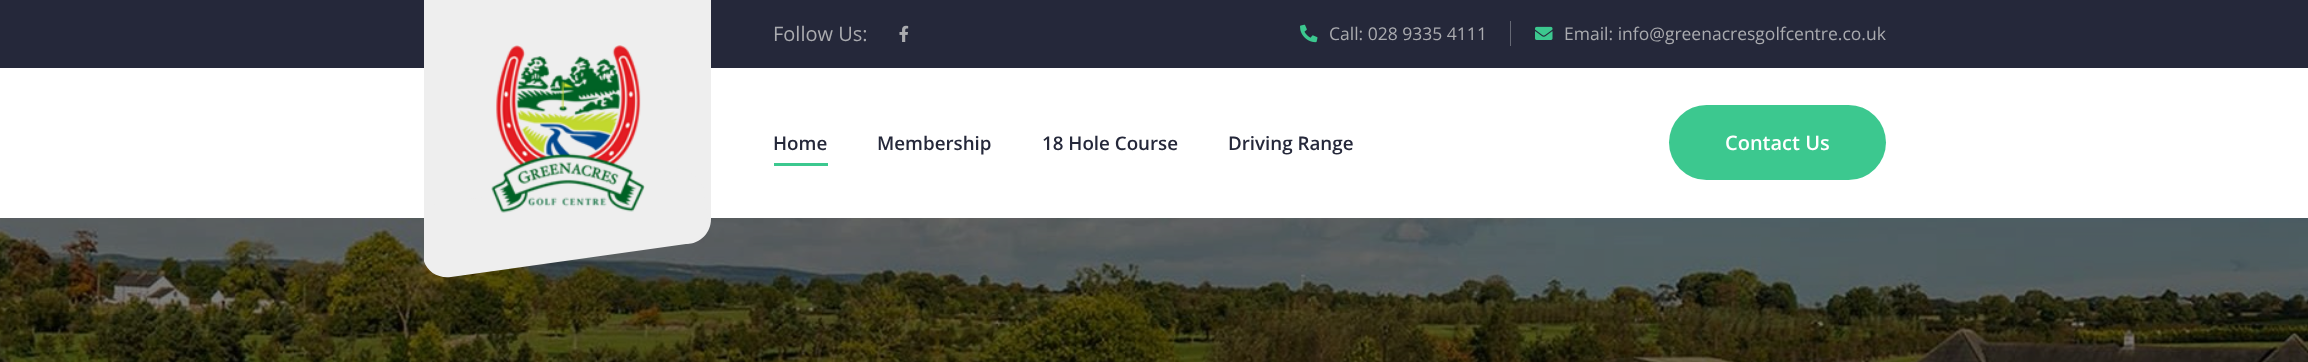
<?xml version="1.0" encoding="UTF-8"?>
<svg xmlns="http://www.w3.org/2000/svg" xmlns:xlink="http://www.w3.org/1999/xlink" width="2308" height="362">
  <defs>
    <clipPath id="clip1"><rect x="424" width="287" height="286" /></clipPath>
  </defs>
  <rect width="100%" height="100%" fill="#ffffff" />
  <rect width="2308" height="68" fill="#25283a" />
  <image x="899" y="25" width="10" height="17" xlink:href="image1.png" />
  <image x="1300" y="24" width="18" height="19" xlink:href="image2.png" />
  <rect x="1510" y="21" width="1" height="25" fill="#666975" />
  <image x="1535" y="26" width="18" height="14" xlink:href="image3.png" />
  <image x="0" y="218" width="2308" height="144" xlink:href="image5.png" />
  <path d="M 424 0 h 287 v 219 c 0 14 -11 25 -25 25 h -262 z" fill="#eeeeee" />
  <g clip-path="url(#clip1)">
    <path d="M 440 203 l 236 -33 c 13 -2 26 8 28 21 l 3 25 c 2 14 -7 26 -21 28 l -235 33 c -14 2 -27 -7 -28 -21 l -4 -25 c -2 -13 8 -26 21 -28 z" fill="#eeeeee" />
  </g>
  <image x="491" y="45" width="154" height="168" xlink:href="image4.png" />
  <rect x="774" y="163" width="54" height="3" fill="#3cc88f" />
  <rect x="1669" y="105" width="217" height="75" rx="37.5" fill="#3cc88f" />
  <text x="773" y="41" style="font-family: Open Sans; font-size: 20px; fill: #aaabaf">Follow Us:</text>
  <text x="1329" y="40" style="font-family: Open Sans; font-size: 17.5px; fill: #aaabaf">Call: 028 9335 4111</text>
  <text x="1564" y="40" style="font-family: Open Sans; font-size: 17.5px; fill: #aaabaf">Email: info@greenacresgolfcentre.co.uk</text>
  <text x="773" y="150" style="font-family: Open Sans; font-size: 18.75px; font-weight: 600; fill: #25283a">Home</text>
  <text x="877" y="150" style="font-family: Open Sans; font-size: 18.75px; font-weight: 600; fill: #25283a">Membership</text>
  <text x="1042" y="150" style="font-family: Open Sans; font-size: 18.75px; font-weight: 600; fill: #25283a">18 Hole Course</text>
  <text x="1228" y="150" style="font-family: Open Sans; font-size: 18.75px; font-weight: 600; fill: #25283a">Driving Range</text>
  <text x="1725" y="150" style="font-family: Open Sans; font-size: 20px; font-weight: 600; fill: #ffffff">Contact Us</text>
</svg>
